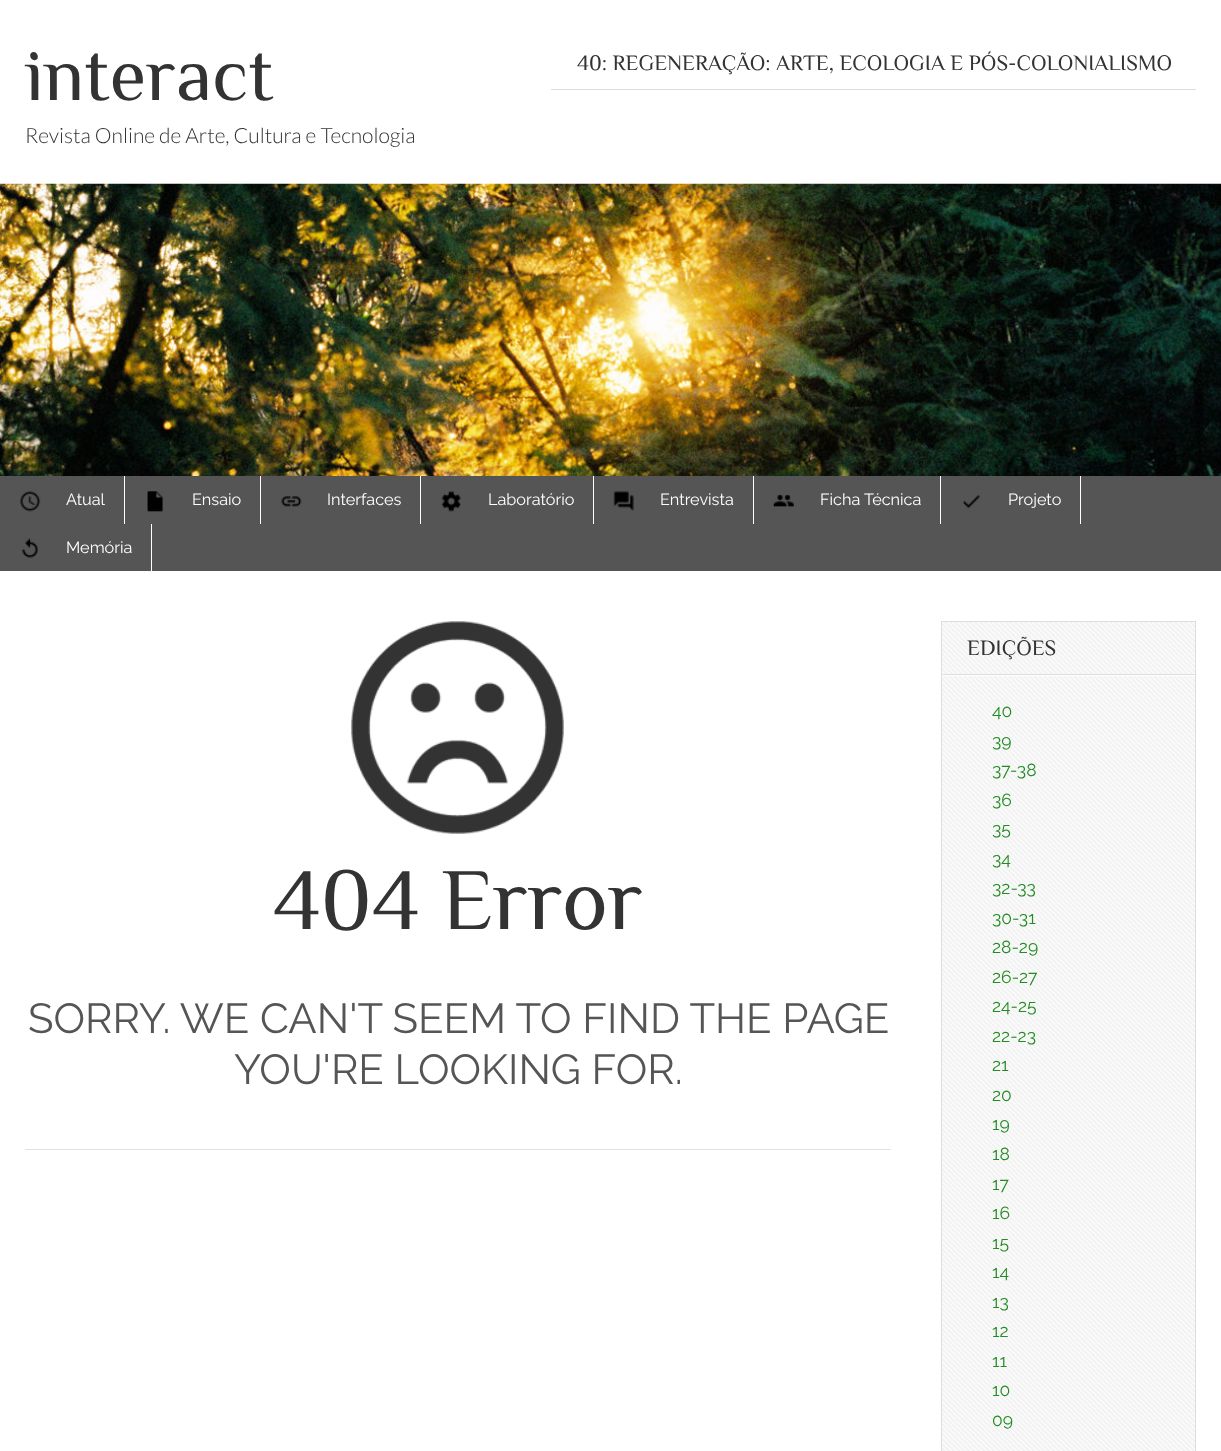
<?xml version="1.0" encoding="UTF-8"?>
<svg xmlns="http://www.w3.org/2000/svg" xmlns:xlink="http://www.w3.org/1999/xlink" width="1221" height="1451">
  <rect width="100%" height="100%" fill="#ffffff" />
  <rect x="551" y="89" width="645" height="1" fill="#dddddd" />
  <image x="0" y="183" width="1221" height="293" xlink:href="image1.png" />
  <rect y="476" width="1221" height="95" fill="#555555" />
  <rect x="124" y="476" width="1" height="48" fill="#ffffff" />
  <image x="20" y="491" width="21" height="21" xlink:href="image2.png" />
  <rect x="260" y="476" width="1" height="48" fill="#ffffff" />
  <image x="147" y="491" width="16" height="21" xlink:href="image3.png" />
  <rect x="420" y="476" width="1" height="48" fill="#ffffff" />
  <image x="281" y="496" width="21" height="11" xlink:href="image4.png" />
  <rect x="593" y="476" width="1" height="48" fill="#ffffff" />
  <image x="441" y="491" width="20" height="21" xlink:href="image5.png" />
  <rect x="753" y="476" width="1" height="48" fill="#ffffff" />
  <image x="613" y="491" width="21" height="20" xlink:href="image6.png" />
  <rect x="940" y="476" width="1" height="48" fill="#ffffff" />
  <image x="773" y="494" width="21" height="13" xlink:href="image7.png" />
  <rect x="1080" y="476" width="1" height="48" fill="#ffffff" />
  <image x="963" y="495" width="17" height="13" xlink:href="image8.png" />
  <rect x="151" y="524" width="1" height="47" fill="#ffffff" />
  <image x="22" y="538" width="16" height="20" xlink:href="image9.png" />
  <image x="351" y="621" width="213" height="213" xlink:href="image10.png" />
  <rect x="25" y="1149" width="866" height="1" fill="#e2e2e2" />
  <image x="942" y="622" width="253" height="829" xlink:href="image11.png" />
  <rect x="941.5" y="621.5" width="254" height="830" fill="none" stroke="#dddddd" />
  <rect x="943" y="675" width="252" height="1" fill="#ffffff" />
  <rect x="943" y="674" width="252" height="1" fill="#dddddd" />
  <text x="25" y="100" style="font-family: Philosopher; font-size: 75px; fill: #333333">interact</text>
  <text x="25" y="143" style="font-family: Lato; font-size: 21px; font-weight: 300; fill: #333333">Revista Online de Arte, Cultura e Tecnologia</text>
  <text x="577" y="70" style="font-family: Philosopher; font-size: 21.9px; fill: #333333">40: REGENERAÇÃO: ARTE, ECOLOGIA E PÓS-COLONIALISMO</text>
  <text x="66" y="505" style="font-family: Raleway; font-size: 16.25px; font-weight: 100; fill: #ffffff">Atual</text>
  <text x="192" y="505" style="font-family: Raleway; font-size: 16.25px; font-weight: 100; fill: #ffffff">Ensaio</text>
  <text x="327" y="505" style="font-family: Raleway; font-size: 16.25px; font-weight: 100; fill: #ffffff">Interfaces</text>
  <text x="488" y="505" style="font-family: Raleway; font-size: 16.25px; font-weight: 100; fill: #ffffff">Laboratório</text>
  <text x="660" y="505" style="font-family: Raleway; font-size: 16.25px; font-weight: 100; fill: #ffffff">Entrevista</text>
  <text x="820" y="505" style="font-family: Raleway; font-size: 16.25px; font-weight: 100; fill: #ffffff">Ficha Técnica</text>
  <text x="1008" y="505" style="font-family: Raleway; font-size: 16.25px; font-weight: 100; fill: #ffffff">Projeto</text>
  <text x="66" y="553" style="font-family: Raleway; font-size: 16.25px; font-weight: 100; fill: #ffffff">Memória</text>
  <text x="273" y="929" style="font-family: Philosopher; font-size: 87.5px; fill: #333333">404 Error</text>
  <text x="28" y="1033" style="font-family: Raleway; font-size: 42px; font-weight: 100; fill: #555555">SORRY. WE CAN'T SEEM TO FIND THE PAGE</text>
  <text x="234" y="1084" style="font-family: Raleway; font-size: 42px; font-weight: 100; fill: #555555">YOU'RE LOOKING FOR.</text>
  <text x="967" y="655" style="font-family: Philosopher; font-size: 21.9px; fill: #333333">EDIÇÕES</text>
  <text x="992" y="717" style="font-family: Raleway; font-size: 17.5px; font-weight: 100; fill: #228b22">40</text>
  <text x="992" y="747" style="font-family: Raleway; font-size: 17.5px; font-weight: 100; fill: #228b22">39</text>
  <text x="992" y="776" style="font-family: Raleway; font-size: 17.5px; font-weight: 100; fill: #228b22">37-38</text>
  <text x="992" y="806" style="font-family: Raleway; font-size: 17.5px; font-weight: 100; fill: #228b22">36</text>
  <text x="992" y="835" style="font-family: Raleway; font-size: 17.5px; font-weight: 100; fill: #228b22">35</text>
  <text x="992" y="865" style="font-family: Raleway; font-size: 17.5px; font-weight: 100; fill: #228b22">34</text>
  <text x="992" y="894" style="font-family: Raleway; font-size: 17.5px; font-weight: 100; fill: #228b22">32-33</text>
  <text x="992" y="924" style="font-family: Raleway; font-size: 17.5px; font-weight: 100; fill: #228b22">30-31</text>
  <text x="992" y="953" style="font-family: Raleway; font-size: 17.5px; font-weight: 100; fill: #228b22">28-29</text>
  <text x="992" y="983" style="font-family: Raleway; font-size: 17.5px; font-weight: 100; fill: #228b22">26-27</text>
  <text x="992" y="1012" style="font-family: Raleway; font-size: 17.5px; font-weight: 100; fill: #228b22">24-25</text>
  <text x="992" y="1042" style="font-family: Raleway; font-size: 17.5px; font-weight: 100; fill: #228b22">22-23</text>
  <text x="992" y="1071" style="font-family: Raleway; font-size: 17.5px; font-weight: 100; fill: #228b22">21</text>
  <text x="992" y="1101" style="font-family: Raleway; font-size: 17.5px; font-weight: 100; fill: #228b22">20</text>
  <text x="992" y="1130" style="font-family: Raleway; font-size: 17.5px; font-weight: 100; fill: #228b22">19</text>
  <text x="992" y="1160" style="font-family: Raleway; font-size: 17.5px; font-weight: 100; fill: #228b22">18</text>
  <text x="992" y="1190" style="font-family: Raleway; font-size: 17.5px; font-weight: 100; fill: #228b22">17</text>
  <text x="992" y="1219" style="font-family: Raleway; font-size: 17.5px; font-weight: 100; fill: #228b22">16</text>
  <text x="992" y="1249" style="font-family: Raleway; font-size: 17.5px; font-weight: 100; fill: #228b22">15</text>
  <text x="992" y="1278" style="font-family: Raleway; font-size: 17.5px; font-weight: 100; fill: #228b22">14</text>
  <text x="992" y="1308" style="font-family: Raleway; font-size: 17.5px; font-weight: 100; fill: #228b22">13</text>
  <text x="992" y="1337" style="font-family: Raleway; font-size: 17.5px; font-weight: 100; fill: #228b22">12</text>
  <text x="992" y="1367" style="font-family: Raleway; font-size: 17.5px; font-weight: 100; fill: #228b22">11</text>
  <text x="992" y="1396" style="font-family: Raleway; font-size: 17.5px; font-weight: 100; fill: #228b22">10</text>
  <text x="992" y="1426" style="font-family: Raleway; font-size: 17.5px; font-weight: 100; fill: #228b22">09</text>
</svg>
